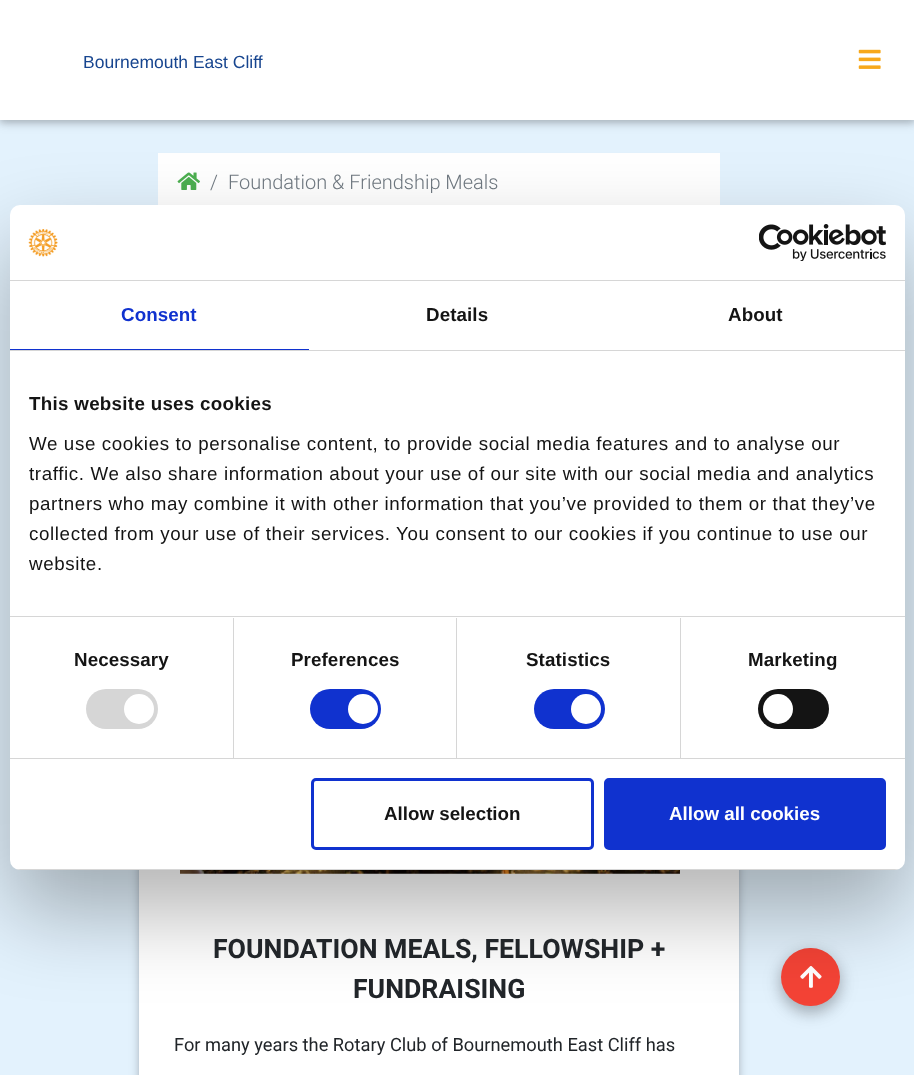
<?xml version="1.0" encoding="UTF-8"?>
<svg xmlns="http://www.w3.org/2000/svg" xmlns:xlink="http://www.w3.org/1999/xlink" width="914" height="1075">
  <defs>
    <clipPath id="clip1"><rect x="10" y="205" width="895" height="665" rx="10" /></clipPath>
  </defs>
  <rect width="100%" height="100%" fill="#e3f2fd" />
  <rect y="3" width="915" height="120" fill="#000000" fill-opacity="0.12" filter="blur(6px)" />
  <rect y="3" width="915" height="120" fill="#000000" fill-opacity="0.16" filter="blur(3px)" />
  <rect width="914" height="120" fill="#ffffff" />
  <image x="858" y="49" width="23" height="20" xlink:href="image1.png" />
  <rect x="158" y="153" width="562" height="52" fill="#ffffff" />
  <image x="177" y="172" width="23" height="18" xlink:href="image2.png" />
  <rect x="139" y="235" width="600" height="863" rx="5" fill="#000000" fill-opacity="0.12" filter="blur(6px)" />
  <rect x="139" y="235" width="600" height="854" rx="5" fill="#000000" fill-opacity="0.16" filter="blur(3px)" />
  <rect x="139" y="870" width="600" height="205" fill="#ffffff" />
  <image x="180" y="870" width="500" height="4" xlink:href="image3.png" />
  <rect x="781" y="953" width="59" height="58" rx="29" fill="#000000" fill-opacity="0.15" filter="blur(9.5px)" />
  <rect x="781" y="954" width="59" height="59" rx="29.5" fill="#000000" fill-opacity="0.18" filter="blur(7px)" />
  <rect x="781" y="948" width="59" height="58" rx="29" fill="#f44336" />
  <image x="800" y="966" width="22" height="22" xlink:href="image6.png" />
  <rect x="10" y="245" width="895" height="665" rx="10" fill="#000000" fill-opacity="0.3" filter="blur(42.5px)" />
  <rect x="10" y="205" width="895" height="665" rx="10" fill="#ffffff" />
  <rect x="10" y="280" width="895" height="1" fill="#d6d6d6" />
  <image x="28" y="229" width="30" height="28" xlink:href="image4.png" />
  <image x="759" y="224" width="127" height="37" xlink:href="image5.png" />
  <rect x="10" y="350" width="895" height="1" fill="#d6d6d6" />
  <rect x="10" y="349" width="299" height="1" fill="#1032cf" />
  <rect x="10" y="616" width="895" height="1" fill="#d6d6d6" />
  <rect x="10" y="758" width="895" height="1" fill="#d6d6d6" />
  <rect x="233" y="618" width="1" height="140" fill="#d6d6d6" />
  <rect x="86" y="689" width="72" height="40" rx="20" fill="#d6d6d6" />
  <circle cx="139" cy="709" r="15" fill="#ffffff" />
  <rect x="456" y="618" width="1" height="140" fill="#d6d6d6" />
  <rect x="310" y="689" width="71" height="40" rx="20" fill="#1032cf" />
  <circle cx="363" cy="709" r="15" fill="#ffffff" />
  <rect x="680" y="618" width="1" height="140" fill="#d6d6d6" />
  <rect x="534" y="689" width="71" height="40" rx="20" fill="#1032cf" />
  <circle cx="586" cy="709" r="15" fill="#ffffff" />
  <rect x="758" y="689" width="71" height="40" rx="20" fill="#141414" />
  <circle cx="778" cy="709" r="15" fill="#ffffff" />
  <g clip-path="url(#clip1)">
    <rect x="10" y="869" width="895" height="1" fill="#d6d6d6" />
  </g>
  <rect x="312.5" y="779.5" width="280" height="69" rx="3.5" fill="none" stroke="#1032cf" stroke-width="3" />
  <rect x="605.5" y="779.5" width="279" height="69" rx="3.5" fill="#1032cf" stroke="#1032cf" stroke-width="3" />
  <text x="83" y="68" style="font-family: Liberation Sans; font-size: 17.5px; fill: #17458f">Bournemouth East Cliff</text>
  <text x="210" y="189" style="font-family: Roboto; font-size: 20px; font-weight: 300; fill: #6c757d">/</text>
  <text x="228" y="189" style="font-family: Roboto; font-size: 20px; font-weight: 300; fill: #6c757d">Foundation &amp; Friendship Meals</text>
  <text x="213" y="958" style="font-family: Roboto; font-size: 26.7px; font-weight: bold; fill: #212529">FOUNDATION MEALS, FELLOWSHIP +</text>
  <text x="353" y="998" style="font-family: Roboto; font-size: 26.7px; font-weight: bold; fill: #212529">FUNDRAISING</text>
  <text x="174" y="1051" style="font-family: Roboto; font-size: 18.3px; fill: #212529">For many years the Rotary Club of Bournemouth East Cliff has</text>
  <text x="121" y="321" style="font-family: Liberation Sans; font-size: 18.75px; font-weight: bold; letter-spacing: 0.1px; fill: #1032cf">Consent</text>
  <text x="426" y="321" style="font-family: Liberation Sans; font-size: 18.75px; font-weight: bold; letter-spacing: 0.1px; fill: #141414">Details</text>
  <text x="728" y="321" style="font-family: Liberation Sans; font-size: 18.75px; font-weight: bold; letter-spacing: 0.1px; fill: #141414">About</text>
  <text x="29" y="410" style="font-family: Liberation Sans; font-size: 18.75px; font-weight: bold; letter-spacing: 0.3px; fill: #141414">This website uses cookies</text>
  <text x="29" y="450" style="font-family: Liberation Sans; font-size: 18.75px; letter-spacing: 0.62px; fill: #141414">We use cookies to personalise content, to provide social media features and to analyse our</text>
  <text x="29" y="480" style="font-family: Liberation Sans; font-size: 18.75px; letter-spacing: 0.62px; fill: #141414">traffic. We also share information about your use of our site with our social media and analytics</text>
  <text x="29" y="510" style="font-family: Liberation Sans; font-size: 18.75px; letter-spacing: 0.62px; fill: #141414">partners who may combine it with other information that you’ve provided to them or that they’ve</text>
  <text x="29" y="540" style="font-family: Liberation Sans; font-size: 18.75px; letter-spacing: 0.62px; fill: #141414">collected from your use of their services. You consent to our cookies if you continue to use our</text>
  <text x="29" y="570" style="font-family: Liberation Sans; font-size: 18.75px; letter-spacing: 0.62px; fill: #141414">website.</text>
  <text x="74" y="666" style="font-family: Liberation Sans; font-size: 18.75px; font-weight: bold; letter-spacing: 0.1px; fill: #141414">Necessary</text>
  <text x="291" y="666" style="font-family: Liberation Sans; font-size: 18.75px; font-weight: bold; letter-spacing: 0.1px; fill: #141414">Preferences</text>
  <text x="526" y="666" style="font-family: Liberation Sans; font-size: 18.75px; font-weight: bold; letter-spacing: 0.1px; fill: #141414">Statistics</text>
  <text x="748" y="666" style="font-family: Liberation Sans; font-size: 18.75px; font-weight: bold; letter-spacing: 0.1px; fill: #141414">Marketing</text>
  <text x="384" y="820" style="font-family: Liberation Sans; font-size: 18.75px; font-weight: bold; fill: #141414">Allow selection</text>
  <text x="669" y="820" style="font-family: Liberation Sans; font-size: 18.75px; font-weight: bold; fill: #ffffff">Allow all cookies</text>
</svg>
